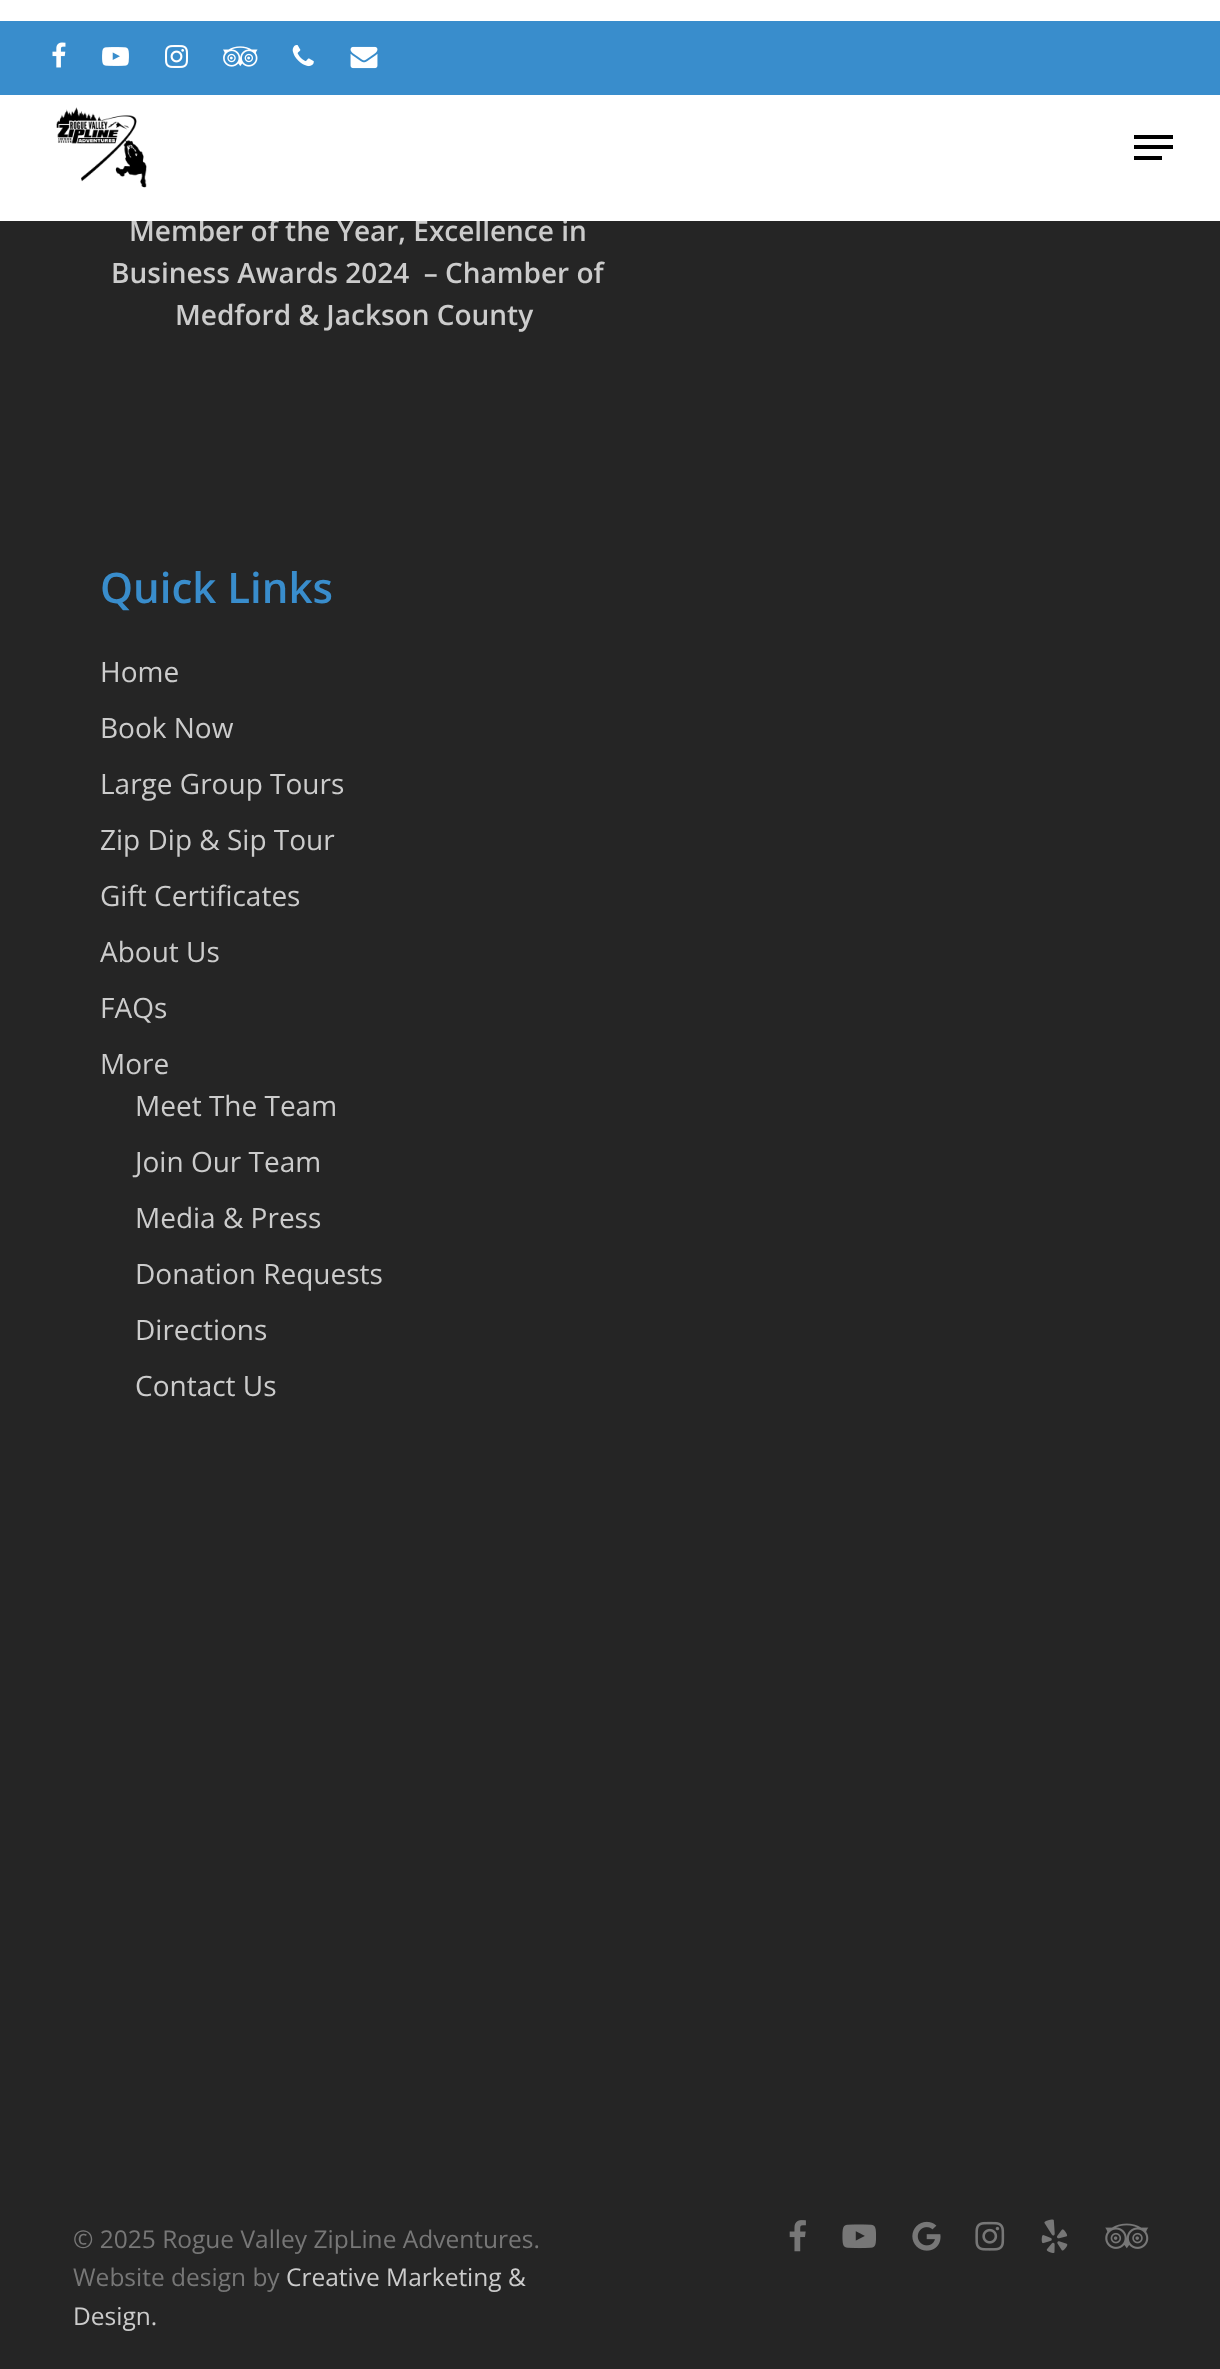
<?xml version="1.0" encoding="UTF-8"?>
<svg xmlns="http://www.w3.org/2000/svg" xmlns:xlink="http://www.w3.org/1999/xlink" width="1220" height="2369">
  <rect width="100%" height="100%" fill="#252525" />
  <image x="789" y="2220" width="17" height="32" xlink:href="image8.png" />
  <image x="842" y="2224" width="34" height="25" xlink:href="image9.png" />
  <image x="912" y="2221" width="29" height="30" xlink:href="image10.png" />
  <image x="975" y="2221" width="30" height="30" xlink:href="image11.png" />
  <image x="1041" y="2219" width="27" height="34" xlink:href="image12.png" />
  <image x="1105" y="2223" width="44" height="26" xlink:href="image13.png" />
  <text x="129" y="241" style="font-family: Open Sans; font-size: 28px; font-weight: 600; fill: #cccccc">Member of the Year, Excellence in</text>
  <rect width="1220" height="221" fill="#ffffff" />
  <rect y="21" width="1220" height="74" fill="#398dcc" />
  <image x="350" y="46" width="28" height="23" xlink:href="image6.png" />
  <image x="292" y="45" width="22" height="22" xlink:href="image5.png" />
  <image x="223" y="46" width="35" height="21" xlink:href="image4.png" />
  <image x="165" y="45" width="23" height="23" xlink:href="image3.png" />
  <image x="102" y="47" width="27" height="19" xlink:href="image2.png" />
  <image x="52" y="42" width="14" height="26" xlink:href="image1.png" />
  <rect x="1134" y="145" width="39" height="4" fill="#000000" />
  <rect x="1134" y="135" width="39" height="4" fill="#000000" />
  <rect x="1134" y="156" width="28" height="4" fill="#000000" />
  <image x="56" y="107" width="91" height="81" xlink:href="image7.png" />
  <text x="111" y="283" style="font-family: Open Sans; font-size: 28px; font-weight: 600; fill: #cccccc" xml:space="preserve">Business Awards 2024  – Chamber of</text>
  <text x="175" y="325" style="font-family: Open Sans; font-size: 28px; font-weight: 600; fill: #cccccc">Medford &amp; Jackson County</text>
  <text x="100" y="603" style="font-family: Open Sans; font-size: 42px; font-weight: 600; fill: #398dcc">Quick Links</text>
  <text x="100" y="682" style="font-family: Open Sans; font-size: 28px; fill: #cccccc">Home</text>
  <text x="100" y="738" style="font-family: Open Sans; font-size: 28px; fill: #cccccc">Book Now</text>
  <text x="100" y="794" style="font-family: Open Sans; font-size: 28px; fill: #cccccc">Large Group Tours</text>
  <text x="100" y="850" style="font-family: Open Sans; font-size: 28px; fill: #cccccc">Zip Dip &amp; Sip Tour</text>
  <text x="100" y="906" style="font-family: Open Sans; font-size: 28px; fill: #cccccc">Gift Certificates</text>
  <text x="100" y="962" style="font-family: Open Sans; font-size: 28px; fill: #cccccc">About Us</text>
  <text x="100" y="1018" style="font-family: Open Sans; font-size: 28px; fill: #cccccc">FAQs</text>
  <text x="100" y="1074" style="font-family: Open Sans; font-size: 28px; fill: #cccccc">More</text>
  <text x="135" y="1116" style="font-family: Open Sans; font-size: 28px; fill: #cccccc">Meet The Team</text>
  <text x="135" y="1172" style="font-family: Open Sans; font-size: 28px; fill: #cccccc">Join Our Team</text>
  <text x="135" y="1228" style="font-family: Open Sans; font-size: 28px; fill: #cccccc">Media &amp; Press</text>
  <text x="135" y="1284" style="font-family: Open Sans; font-size: 28px; fill: #cccccc">Donation Requests</text>
  <text x="135" y="1340" style="font-family: Open Sans; font-size: 28px; fill: #cccccc">Directions</text>
  <text x="135" y="1396" style="font-family: Open Sans; font-size: 28px; fill: #cccccc">Contact Us</text>
  <text x="73" y="2248" style="font-family: Open Sans; font-size: 24.5px; fill: #777777">© 2025 Rogue Valley ZipLine Adventures.</text>
  <text x="73" y="2286" style="font-family: Open Sans; font-size: 24.5px; fill: #777777">Website design by</text>
  <text x="286" y="2286" style="font-family: Open Sans; font-size: 24.5px; fill: #cccccc">Creative Marketing &amp;</text>
  <text x="73" y="2325" style="font-family: Open Sans; font-size: 24.5px; fill: #cccccc">Design.</text>
</svg>
